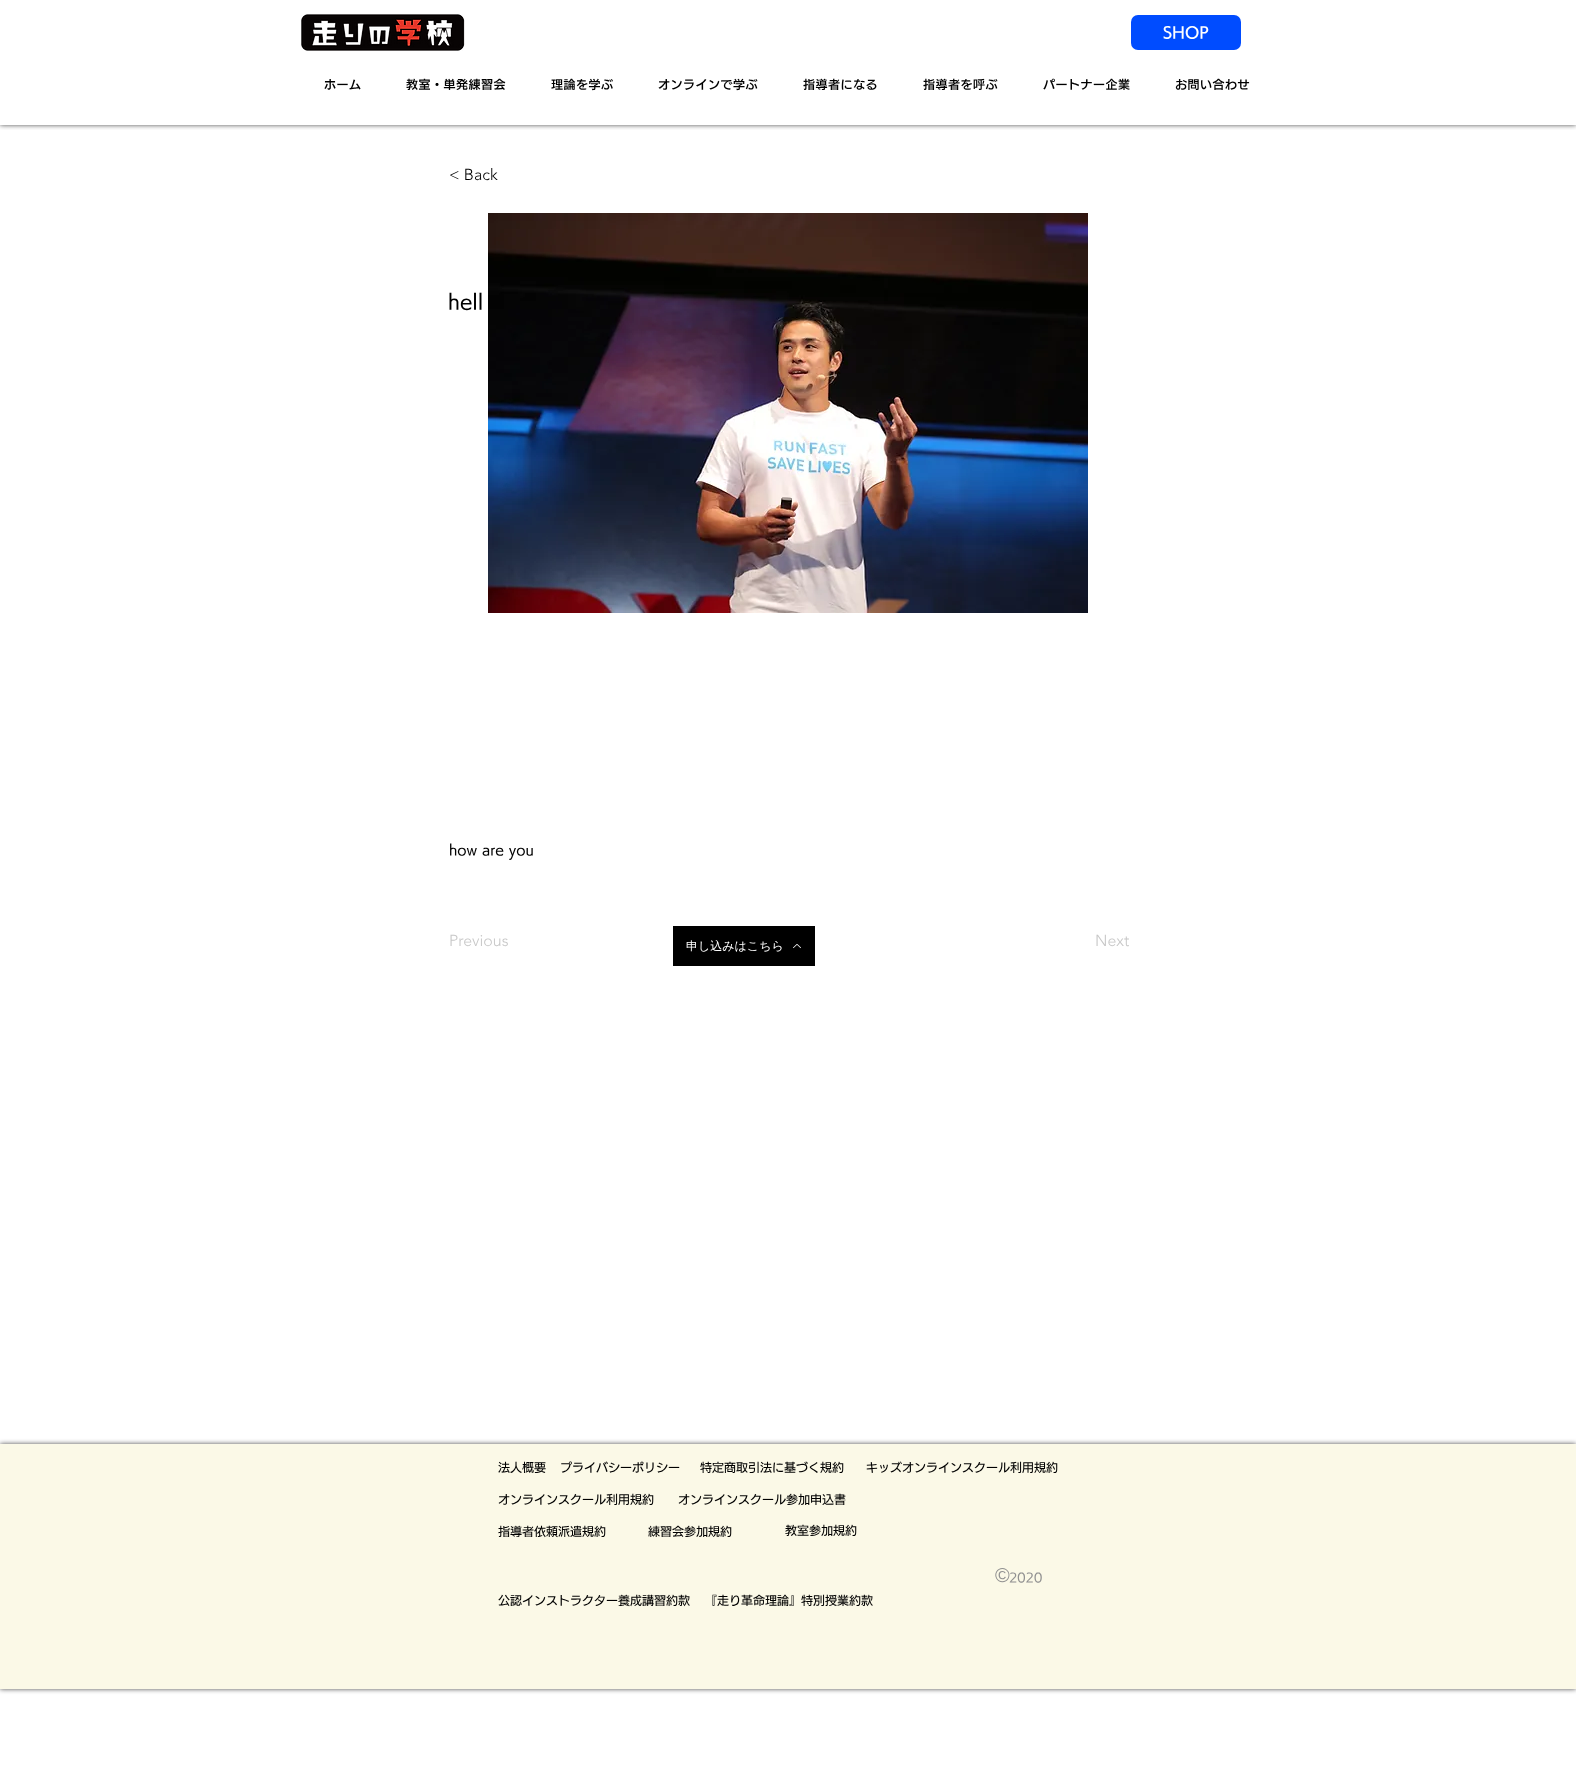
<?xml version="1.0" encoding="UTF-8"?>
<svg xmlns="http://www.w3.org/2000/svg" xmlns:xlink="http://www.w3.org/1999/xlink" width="1576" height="1765">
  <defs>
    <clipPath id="clip1"><rect x="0" y="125" width="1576" height="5" /></clipPath>
  </defs>
  <rect width="100%" height="100%" fill="#ffffff" />
  <g clip-path="url(#clip1)">
    <rect width="1576" height="125" fill="#000000" fill-opacity="0.7" filter="blur(2.5px)" />
  </g>
  <image x="301" y="14" width="164" height="37" xlink:href="image1.png" />
  <rect x="1131" y="15" width="110" height="35" rx="7" fill="#004cff" />
  <rect x="673" y="926" width="142" height="40" fill="#000000" />
  <image x="793" y="944" width="8" height="5" xlink:href="image2.png" />
  <image x="488" y="213" width="600" height="400" xlink:href="image3.png" />
  <rect y="1444" width="1576" height="245" fill="#000000" fill-opacity="0.7" filter="blur(2.5px)" />
  <rect y="1444" width="1576" height="245" fill="#fbf9e7" />
  <text x="1163" y="38" style="font-family: 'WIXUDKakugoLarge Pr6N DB'; font-size: 15px; font-weight: 600; fill: #ffffff">SHOP</text>
  <text x="324" y="89" style="font-family: 'WIXUDKakugoLarge Pr6N DB'; font-size: 12px; font-weight: 600; letter-spacing: 0.5px; fill: #000000">ホーム</text>
  <text x="406" y="89" style="font-family: 'WIXUDKakugoLarge Pr6N DB'; font-size: 12px; font-weight: 600; letter-spacing: 0.5px; fill: #000000">教室・単発練習会</text>
  <text x="551" y="89" style="font-family: 'WIXUDKakugoLarge Pr6N DB'; font-size: 12px; font-weight: 600; letter-spacing: 0.5px; fill: #000000">理論を学ぶ</text>
  <text x="658" y="89" style="font-family: 'WIXUDKakugoLarge Pr6N DB'; font-size: 12px; font-weight: 600; letter-spacing: 0.5px; fill: #000000">オンラインで学ぶ</text>
  <text x="803" y="89" style="font-family: 'WIXUDKakugoLarge Pr6N DB'; font-size: 12px; font-weight: 600; letter-spacing: 0.5px; fill: #000000">指導者になる</text>
  <text x="923" y="89" style="font-family: 'WIXUDKakugoLarge Pr6N DB'; font-size: 12px; font-weight: 600; letter-spacing: 0.5px; fill: #000000">指導者を呼ぶ</text>
  <text x="1043" y="89" style="font-family: 'WIXUDKakugoLarge Pr6N DB'; font-size: 12px; font-weight: 600; letter-spacing: 0.5px; fill: #000000">パートナー企業</text>
  <text x="1175" y="89" style="font-family: 'WIXUDKakugoLarge Pr6N DB'; font-size: 12px; font-weight: 600; letter-spacing: 0.5px; fill: #000000">お問い合わせ</text>
  <text x="449" y="180" style="font-family: 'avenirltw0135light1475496'; font-size: 16px; font-weight: 300; fill: #000000">&lt; Back</text>
  <text x="448" y="309" style="font-family: 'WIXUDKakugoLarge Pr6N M'; font-size: 20px; font-weight: 500; fill: #000000">hell</text>
  <text x="449" y="855" style="font-family: 'WIXUDKakugoLarge Pr6N M'; font-size: 14px; font-weight: 500; fill: #000000">how are you</text>
  <text x="449" y="946" style="font-family: 'avenirltw0135light1475496'; font-size: 16px; font-weight: 300; fill: #c7c7c7">Previous</text>
  <text x="686" y="950" style="font-family: WenQuanYi Zen Hei; font-size: 12px; font-weight: 500; fill: #ffffff">申し込みはこちら</text>
  <text x="1095" y="946" style="font-family: 'avenirltw0135light1475496'; font-size: 16px; font-weight: 300; fill: #c7c7c7">Next</text>
  <text x="498" y="1472" style="font-family: 'WIXUDKakugoLarge Pr6N M'; font-size: 12px; font-weight: 500; fill: #000000">法人概要</text>
  <text x="560" y="1472" style="font-family: 'WIXUDKakugoLarge Pr6N M'; font-size: 12px; font-weight: 500; fill: #000000">プライバシーポリシー</text>
  <text x="700" y="1472" style="font-family: 'WIXUDKakugoLarge Pr6N M'; font-size: 12px; font-weight: 500; fill: #000000">特定商取引法に基づく規約</text>
  <text x="866" y="1472" style="font-family: 'WIXUDKakugoLarge Pr6N M'; font-size: 12px; font-weight: 500; fill: #000000">キッズオンラインスクール利用規約</text>
  <text x="498" y="1504" style="font-family: 'WIXUDKakugoLarge Pr6N M'; font-size: 12px; font-weight: 500; fill: #000000">オンラインスクール利用規約</text>
  <text x="678" y="1504" style="font-family: 'WIXUDKakugoLarge Pr6N M'; font-size: 12px; font-weight: 500; fill: #000000">オンラインスクール参加申込書</text>
  <text x="498" y="1536" style="font-family: 'WIXUDKakugoLarge Pr6N M'; font-size: 12px; font-weight: 500; fill: #000000">指導者依頼派遣規約</text>
  <text x="648" y="1536" style="font-family: 'WIXUDKakugoLarge Pr6N M'; font-size: 12px; font-weight: 500; fill: #000000">練習会参加規約</text>
  <text x="785" y="1535" style="font-family: 'WIXUDKakugoLarge Pr6N M'; font-size: 12px; font-weight: 500; fill: #000000">教室参加規約</text>
  <text x="995" y="1582" style="font-family: Liberation Sans; font-size: 20px; fill: #919191">©</text>
  <text x="1009" y="1582" style="font-family: 'WIXUDKakugoLarge Pr6N M'; font-size: 12px; font-weight: 500; fill: #919191">2020</text>
  <text x="498" y="1605" style="font-family: 'WIXUDKakugoLarge Pr6N M'; font-size: 12px; font-weight: 500; fill: #000000">公認インストラクター養成講習約款</text>
  <text x="705" y="1605" style="font-family: 'WIXUDKakugoLarge Pr6N M'; font-size: 12px; font-weight: 500; fill: #000000">『走り革命理論』特別授業約款</text>
</svg>
